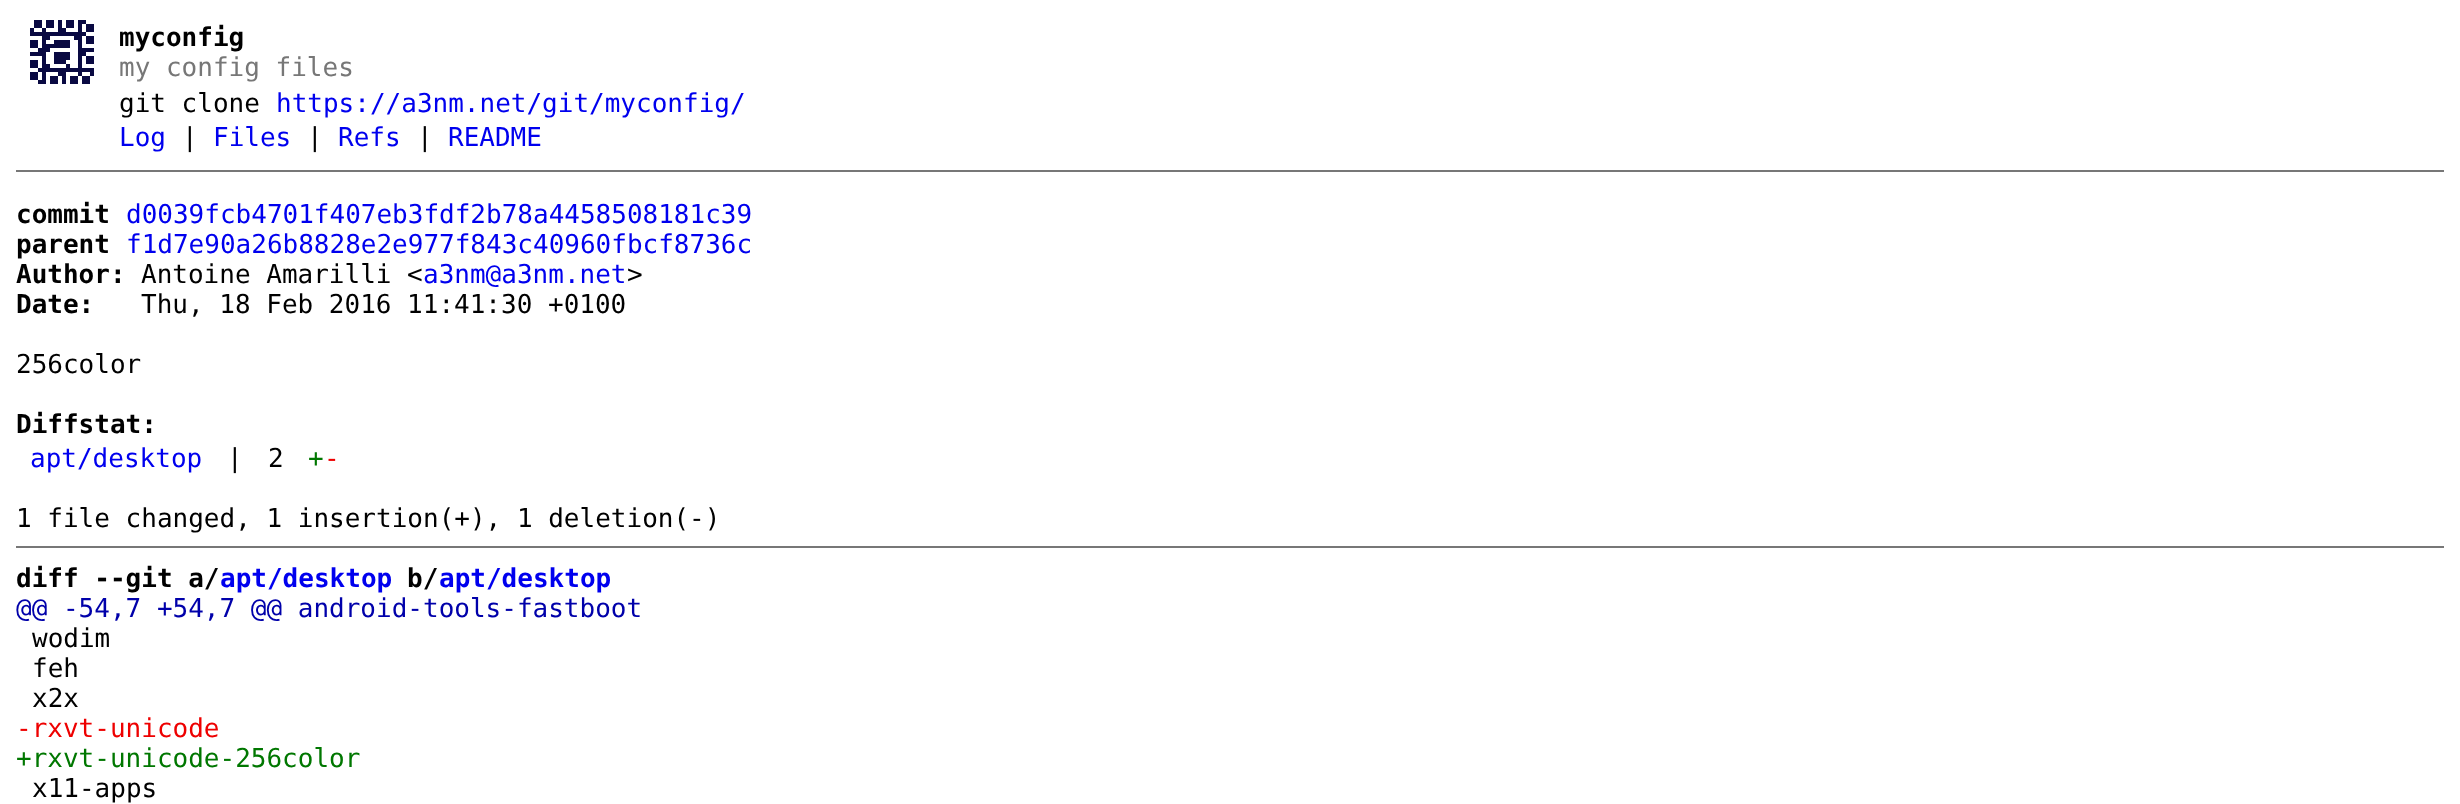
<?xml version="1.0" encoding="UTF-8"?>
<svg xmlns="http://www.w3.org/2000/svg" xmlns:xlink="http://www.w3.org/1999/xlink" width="2460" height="804">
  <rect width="100%" height="100%" fill="#ffffff" />
  <image x="30" y="20" width="64" height="64" xlink:href="image1.png" />
  <rect x="16" y="170" width="2428" height="2" fill="#777777" />
  <rect x="16" y="546" width="2428" height="2" fill="#777777" />
  <text x="119" y="46" style="font-family: DejaVu Sans Mono; font-size: 26px; font-weight: bold; fill: #000000">myconfig</text>
  <text x="119" y="76" style="font-family: DejaVu Sans Mono; font-size: 26px; fill: #777777">my config files</text>
  <text x="119" y="112" style="font-family: DejaVu Sans Mono; font-size: 26px; fill: #000000">git clone</text>
  <text x="276" y="112" style="font-family: DejaVu Sans Mono; font-size: 26px; fill: #0000ee">https://a3nm.net/git/myconfig/</text>
  <text x="119" y="146" style="font-family: DejaVu Sans Mono; font-size: 26px; fill: #0000ee">Log</text>
  <text x="182" y="146" style="font-family: DejaVu Sans Mono; font-size: 26px; fill: #000000">|</text>
  <text x="213" y="146" style="font-family: DejaVu Sans Mono; font-size: 26px; fill: #0000ee">Files</text>
  <text x="307" y="146" style="font-family: DejaVu Sans Mono; font-size: 26px; fill: #000000">|</text>
  <text x="338" y="146" style="font-family: DejaVu Sans Mono; font-size: 26px; fill: #0000ee">Refs</text>
  <text x="417" y="146" style="font-family: DejaVu Sans Mono; font-size: 26px; fill: #000000">|</text>
  <text x="448" y="146" style="font-family: DejaVu Sans Mono; font-size: 26px; fill: #0000ee">README</text>
  <text x="16" y="223" style="font-family: DejaVu Sans Mono; font-size: 26px; font-weight: bold; fill: #000000">commit</text>
  <text x="126" y="223" style="font-family: DejaVu Sans Mono; font-size: 26px; fill: #0000ee">d0039fcb4701f407eb3fdf2b78a4458508181c39</text>
  <text x="16" y="253" style="font-family: DejaVu Sans Mono; font-size: 26px; font-weight: bold; fill: #000000">parent</text>
  <text x="126" y="253" style="font-family: DejaVu Sans Mono; font-size: 26px; fill: #0000ee">f1d7e90a26b8828e2e977f843c40960fbcf8736c</text>
  <text x="16" y="283" style="font-family: DejaVu Sans Mono; font-size: 26px; font-weight: bold; fill: #000000">Author:</text>
  <text x="141" y="283" style="font-family: DejaVu Sans Mono; font-size: 26px; fill: #000000">Antoine Amarilli &lt;</text>
  <text x="423" y="283" style="font-family: DejaVu Sans Mono; font-size: 26px; fill: #0000ee">a3nm@a3nm.net</text>
  <text x="627" y="283" style="font-family: DejaVu Sans Mono; font-size: 26px; fill: #000000">&gt;</text>
  <text x="16" y="313" style="font-family: DejaVu Sans Mono; font-size: 26px; font-weight: bold; fill: #000000">Date:</text>
  <text x="141" y="313" style="font-family: DejaVu Sans Mono; font-size: 26px; fill: #000000">Thu, 18 Feb 2016 11:41:30 +0100</text>
  <text x="16" y="373" style="font-family: DejaVu Sans Mono; font-size: 26px; fill: #000000">256color</text>
  <text x="16" y="433" style="font-family: DejaVu Sans Mono; font-size: 26px; font-weight: bold; fill: #000000">Diffstat:</text>
  <text x="30" y="467" style="font-family: DejaVu Sans Mono; font-size: 26px; fill: #0000ee">apt/desktop</text>
  <text x="227" y="467" style="font-family: DejaVu Sans Mono; font-size: 26px; fill: #000000">|</text>
  <text x="268" y="467" style="font-family: DejaVu Sans Mono; font-size: 26px; fill: #000000">2</text>
  <text x="308" y="467" style="font-family: DejaVu Sans Mono; font-size: 26px; fill: #007700">+</text>
  <text x="324" y="467" style="font-family: DejaVu Sans Mono; font-size: 26px; fill: #ee0000">-</text>
  <text x="16" y="527" style="font-family: DejaVu Sans Mono; font-size: 26px; fill: #000000">1 file changed, 1 insertion(+), 1 deletion(-)</text>
  <text x="16" y="587" style="font-family: DejaVu Sans Mono; font-size: 26px; font-weight: bold; fill: #000000">diff --git a/</text>
  <text x="220" y="587" style="font-family: DejaVu Sans Mono; font-size: 26px; font-weight: bold; fill: #0000ee">apt/desktop</text>
  <text x="407" y="587" style="font-family: DejaVu Sans Mono; font-size: 26px; font-weight: bold; fill: #000000">b/</text>
  <text x="439" y="587" style="font-family: DejaVu Sans Mono; font-size: 26px; font-weight: bold; fill: #0000ee">apt/desktop</text>
  <text x="16" y="617" style="font-family: DejaVu Sans Mono; font-size: 26px; fill: #0000aa">@@ -54,7 +54,7 @@ android-tools-fastboot</text>
  <text x="32" y="647" style="font-family: DejaVu Sans Mono; font-size: 26px; fill: #000000">wodim</text>
  <text x="32" y="677" style="font-family: DejaVu Sans Mono; font-size: 26px; fill: #000000">feh</text>
  <text x="32" y="707" style="font-family: DejaVu Sans Mono; font-size: 26px; fill: #000000">x2x</text>
  <text x="16" y="737" style="font-family: DejaVu Sans Mono; font-size: 26px; fill: #ee0000">-rxvt-unicode</text>
  <text x="16" y="767" style="font-family: DejaVu Sans Mono; font-size: 26px; fill: #007700">+rxvt-unicode-256color</text>
  <text x="32" y="797" style="font-family: DejaVu Sans Mono; font-size: 26px; fill: #000000">x11-apps</text>
</svg>
